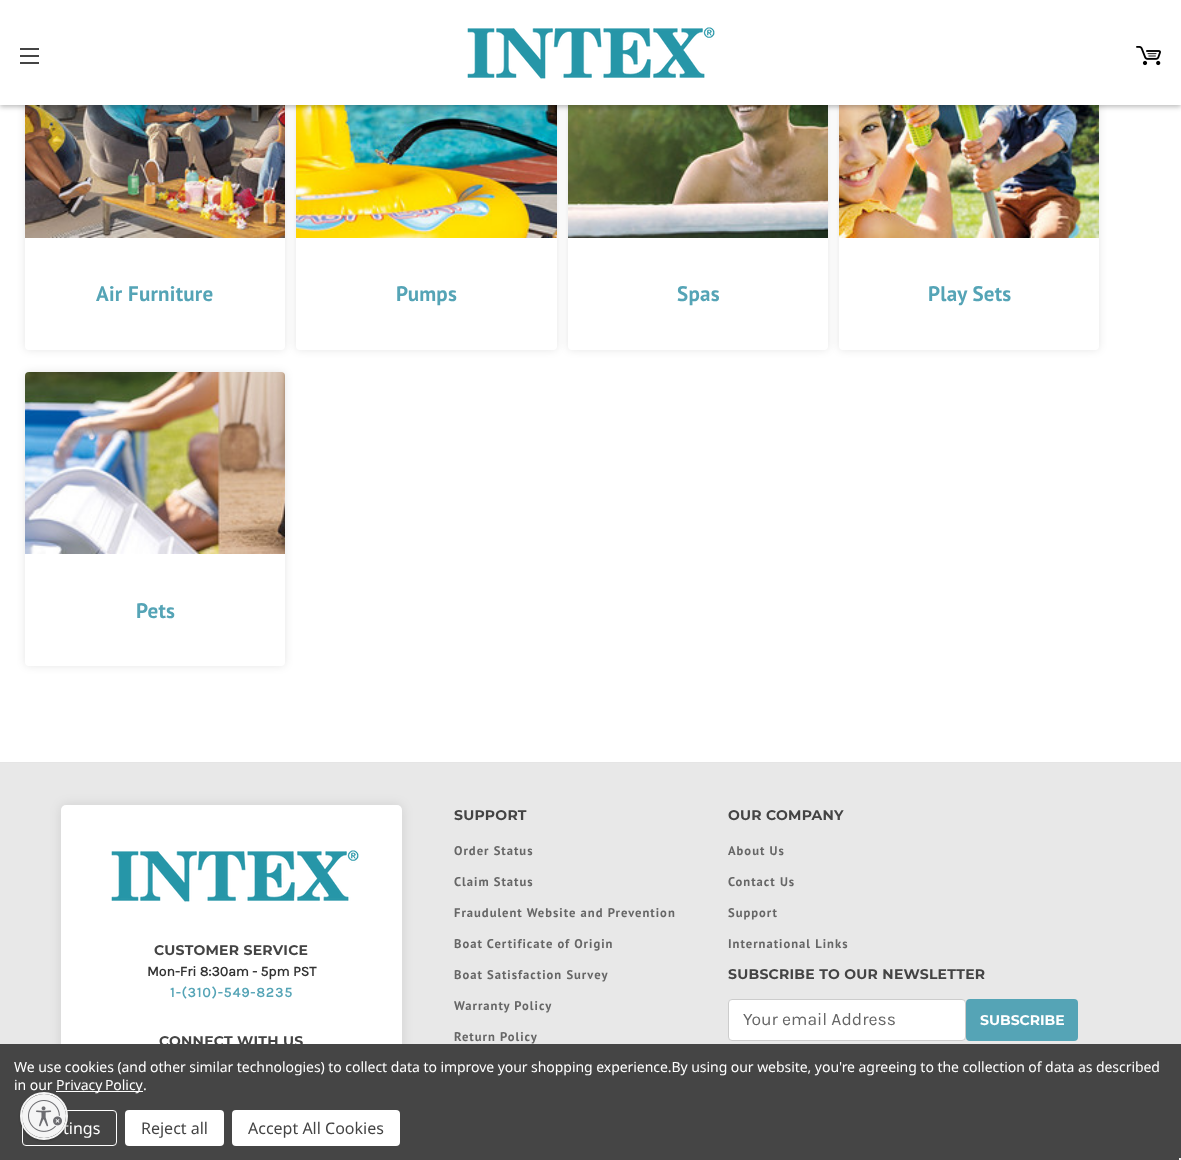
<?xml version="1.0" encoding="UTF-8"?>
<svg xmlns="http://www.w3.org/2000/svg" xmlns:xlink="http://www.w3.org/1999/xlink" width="1181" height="1160">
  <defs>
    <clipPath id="clip1"><rect x="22" y="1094" width="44" height="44" rx="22" /></clipPath>
  </defs>
  <rect width="100%" height="100%" fill="#ffffff" />
  <rect x="25" y="56" width="260" height="294" rx="4" fill="#000000" fill-opacity="0.1" filter="blur(4.5px)" />
  <rect x="25" y="56" width="260" height="294" rx="4" fill="#ffffff" />
  <image x="25" y="105" width="260" height="133" xlink:href="image3.png" />
  <rect x="296" y="56" width="261" height="294" rx="4" fill="#000000" fill-opacity="0.1" filter="blur(4.5px)" />
  <rect x="296" y="56" width="261" height="294" rx="4" fill="#ffffff" />
  <image x="296" y="105" width="261" height="133" xlink:href="image4.png" />
  <rect x="568" y="56" width="260" height="294" rx="4" fill="#000000" fill-opacity="0.1" filter="blur(4.5px)" />
  <rect x="568" y="56" width="260" height="294" rx="4" fill="#ffffff" />
  <image x="568" y="105" width="260" height="133" xlink:href="image5.png" />
  <rect x="839" y="56" width="260" height="294" rx="4" fill="#000000" fill-opacity="0.1" filter="blur(4.5px)" />
  <rect x="839" y="56" width="260" height="294" rx="4" fill="#ffffff" />
  <image x="839" y="105" width="260" height="133" xlink:href="image6.png" />
  <rect y="2" width="1181" height="105" fill="#000000" fill-opacity="0.26" filter="blur(2.5px)" />
  <rect width="1181" height="105" fill="#ffffff" />
  <rect x="20" y="55" width="19" height="2" fill="#444444" />
  <rect x="20" y="48" width="19" height="2" fill="#444444" />
  <rect x="20" y="62" width="19" height="2" fill="#444444" />
  <image x="467" y="27" width="248" height="52" xlink:href="image1.png" />
  <image x="1136" y="46" width="25" height="20" xlink:href="image2.png" />
  <rect x="25" y="372" width="260" height="294" rx="4" fill="#000000" fill-opacity="0.1" filter="blur(4.5px)" />
  <rect x="25" y="372" width="260" height="294" rx="4" fill="#ffffff" />
  <image x="25" y="372" width="260" height="182" xlink:href="image7.png" />
  <rect y="763" width="1181" height="281" fill="#e8e8e8" />
  <rect y="762" width="1181" height="1" fill="#e5e5e5" />
  <rect x="61" y="805" width="341" height="315" rx="5" fill="#000000" fill-opacity="0.1" filter="blur(6px)" />
  <rect x="61" y="805" width="341" height="315" rx="5" fill="#ffffff" />
  <image x="111" y="850" width="248" height="52" xlink:href="image1.png" />
  <rect x="728.5" y="999.5" width="237" height="41" rx="3.5" fill="#ffffff" stroke="#cccccc" />
  <rect x="966" y="999" width="112" height="42" rx="4" fill="#55a4b6" />
  <text x="96" y="301" style="font-family: PT Sans; font-size: 21px; font-weight: bold; letter-spacing: 0.25px; fill: #55a4b6">Air Furniture</text>
  <text x="396" y="301" style="font-family: PT Sans; font-size: 21px; font-weight: bold; letter-spacing: 0.25px; fill: #55a4b6">Pumps</text>
  <text x="677" y="301" style="font-family: PT Sans; font-size: 21px; font-weight: bold; letter-spacing: 0.25px; fill: #55a4b6">Spas</text>
  <text x="928" y="301" style="font-family: PT Sans; font-size: 21px; font-weight: bold; letter-spacing: 0.25px; fill: #55a4b6">Play Sets</text>
  <text x="136" y="618" style="font-family: PT Sans; font-size: 21px; font-weight: bold; letter-spacing: 0.25px; fill: #55a4b6">Pets</text>
  <text x="154" y="955" style="font-family: Montserrat; font-size: 14px; font-weight: bold; letter-spacing: 0.25px; fill: #444444">CUSTOMER SERVICE</text>
  <text x="147" y="976" style="font-family: Karla; font-size: 14px; font-weight: bold; fill: #333333">Mon-Fri 8:30am - 5pm PST</text>
  <text x="170" y="997" style="font-family: Karla; font-size: 14px; font-weight: bold; letter-spacing: 1px; fill: #55a4b6">1-(310)-549-8235</text>
  <text x="159" y="1046" style="font-family: Montserrat; font-size: 14px; font-weight: bold; letter-spacing: 0.25px; fill: #444444">CONNECT WITH US</text>
  <text x="454" y="820" style="font-family: Montserrat; font-size: 14px; font-weight: bold; letter-spacing: 0.25px; fill: #444444">SUPPORT</text>
  <text x="454" y="855" style="font-family: PT Sans; font-size: 12.6px; font-weight: bold; letter-spacing: 1px; fill: #666666">Order Status</text>
  <text x="454" y="886" style="font-family: PT Sans; font-size: 12.6px; font-weight: bold; letter-spacing: 1px; fill: #666666">Claim Status</text>
  <text x="454" y="917" style="font-family: PT Sans; font-size: 12.6px; font-weight: bold; letter-spacing: 1px; fill: #666666">Fraudulent Website and Prevention</text>
  <text x="454" y="948" style="font-family: PT Sans; font-size: 12.6px; font-weight: bold; letter-spacing: 1px; fill: #666666">Boat Certificate of Origin</text>
  <text x="454" y="979" style="font-family: PT Sans; font-size: 12.6px; font-weight: bold; letter-spacing: 1px; fill: #666666">Boat Satisfaction Survey</text>
  <text x="454" y="1010" style="font-family: PT Sans; font-size: 12.6px; font-weight: bold; letter-spacing: 1px; fill: #666666">Warranty Policy</text>
  <text x="454" y="1041" style="font-family: PT Sans; font-size: 12.6px; font-weight: bold; letter-spacing: 1px; fill: #666666">Return Policy</text>
  <text x="728" y="820" style="font-family: Montserrat; font-size: 14px; font-weight: bold; letter-spacing: 0.25px; fill: #444444">OUR COMPANY</text>
  <text x="728" y="855" style="font-family: PT Sans; font-size: 12.6px; font-weight: bold; letter-spacing: 1px; fill: #666666">About Us</text>
  <text x="728" y="886" style="font-family: PT Sans; font-size: 12.6px; font-weight: bold; letter-spacing: 1px; fill: #666666">Contact Us</text>
  <text x="728" y="917" style="font-family: PT Sans; font-size: 12.6px; font-weight: bold; letter-spacing: 1px; fill: #666666">Support</text>
  <text x="728" y="948" style="font-family: PT Sans; font-size: 12.6px; font-weight: bold; letter-spacing: 1px; fill: #666666">International Links</text>
  <text x="728" y="979" style="font-family: Montserrat; font-size: 14px; font-weight: bold; letter-spacing: 0.25px; fill: #444444">SUBSCRIBE TO OUR NEWSLETTER</text>
  <text x="743" y="1025" style="font-family: Karla; font-size: 17.5px; fill: #666666">Your email Address</text>
  <text x="980" y="1025" style="font-family: Montserrat; font-size: 14px; font-weight: bold; fill: #ffffff">SUBSCRIBE</text>
  <rect y="1044" width="1181" height="116" fill="#454545" />
  <text x="14" y="1072" style="font-family: Noto Sans; font-size: 14px; letter-spacing: -0.05px; fill: #ffffff">We use cookies (and other similar technologies) to collect data to improve your shopping experience.By using our website, you're agreeing to the collection of data as described</text>
  <text x="14" y="1090" style="font-family: Noto Sans; font-size: 14px; letter-spacing: -0.05px; fill: #ffffff">in our</text>
  <text x="143" y="1090" style="font-family: Noto Sans; font-size: 14px; letter-spacing: -0.05px; fill: #ffffff">.</text>
  <rect x="56" y="1091" width="87" height="1" fill="#ffffff" />
  <text x="56" y="1090" word-spacing="-1" style="font-family: Noto Sans; font-size: 14px; letter-spacing: -0.05px; fill: #ffffff">Privacy Policy</text>
  <rect x="22.5" y="1110.5" width="94" height="35" rx="3.5" fill="none" stroke="#ffffff" />
  <text x="63" y="1134" style="font-family: Noto Sans; font-size: 16px; fill: #ffffff">tings</text>
  <rect x="125" y="1110" width="99" height="36" rx="4" fill="#ffffff" />
  <text x="141" y="1134" style="font-family: Noto Sans; font-size: 16px; fill: #444444">Reject all</text>
  <rect x="232" y="1110" width="168" height="36" rx="4" fill="#ffffff" />
  <text x="248" y="1134" style="font-family: Noto Sans; font-size: 16px; fill: #444444">Accept All Cookies</text>
  <rect x="20" y="1093" width="48" height="48" rx="24" fill="#000000" fill-opacity="0.24" filter="blur(1px)" />
  <circle cx="44" cy="1116" r="23" fill="none" stroke="#f5f5f5" stroke-width="2" />
  <g clip-path="url(#clip1)">
    <rect x="22" y="1095" width="44" height="44" rx="22" fill="#000000" fill-opacity="0.24" filter="blur(1px)" />
  </g>
  <circle cx="44" cy="1116" r="22" fill="#f5f5f5" />
  <image x="28" y="1100" width="34" height="32" xlink:href="image8.png" />
  <rect x="1179" y="1158" width="2" height="2" fill="#f5f5f5" />
</svg>
